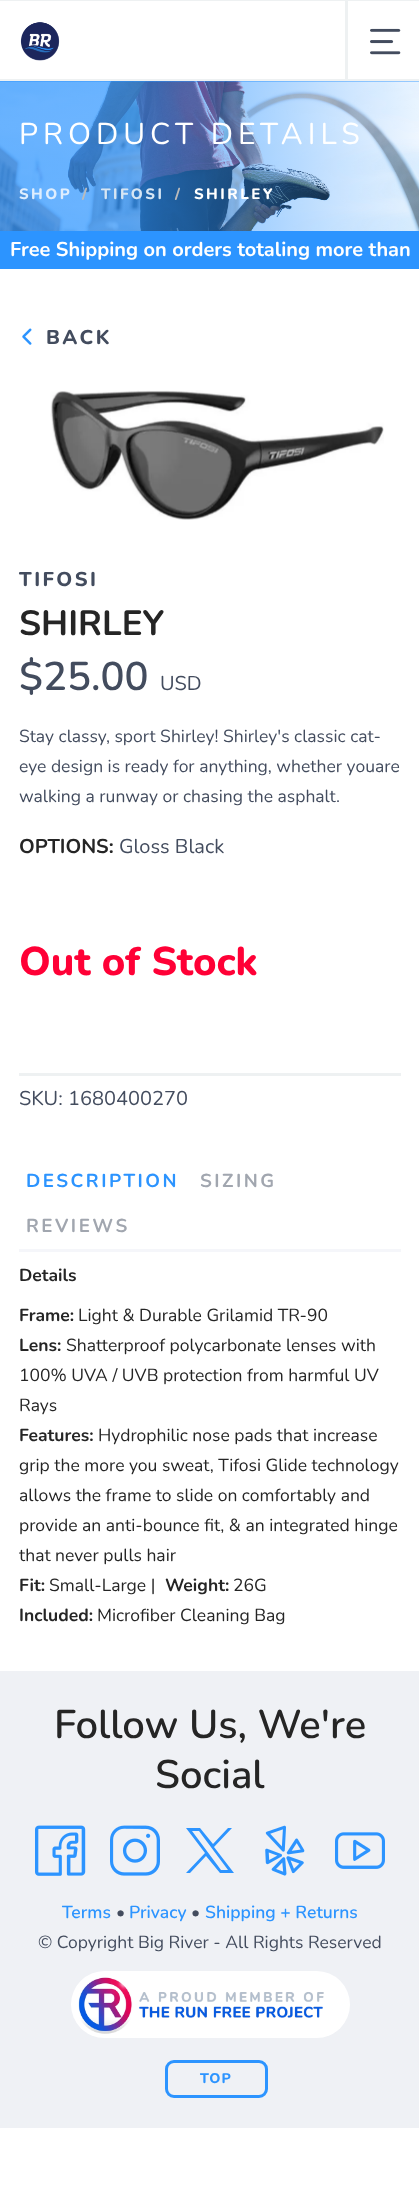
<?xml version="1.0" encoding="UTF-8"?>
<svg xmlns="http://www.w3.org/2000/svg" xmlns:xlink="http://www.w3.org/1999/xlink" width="419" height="2207">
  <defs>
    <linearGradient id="g1" gradientUnits="userSpaceOnUse" x1="0" y1="156" x2="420" y2="156"><stop offset="0.3" stop-color="#2c94ff" stop-opacity="0.7" /><stop offset="1" stop-color="#2c94ff" stop-opacity="0.07" /></linearGradient>
  </defs>
  <rect width="100%" height="100%" fill="#ffffff" />
  <rect width="419" height="1" fill="#eef1f2" />
  <rect y="79" width="419" height="2" fill="#eef1f2" />
  <image x="20" y="22" width="40" height="39" xlink:href="image1.png" />
  <rect x="345" y="1" width="3" height="78" fill="#eef1f2" />
  <image x="370" y="28" width="31" height="27" xlink:href="image2.png" />
  <rect y="81" width="419" height="1" fill="#2c94ff" />
  <image x="0" y="81" width="419" height="150" xlink:href="image3.png" />
  <rect y="81" width="419" height="150" fill="url(#g1)" />
  <rect y="231" width="419" height="38" fill="#2c94ff" />
  <image x="22" y="328" width="10" height="17" xlink:href="image4.png" />
  <image x="50" y="390" width="334" height="130" xlink:href="image5.png" />
  <rect x="19" y="1073" width="382" height="3" fill="#eef1f2" />
  <rect x="19" y="1249" width="382" height="3" fill="#f5f6fa" />
  <rect y="1671" width="419" height="457" fill="#eff1f5" />
  <image x="35" y="1825" width="51" height="51" xlink:href="image6.png" />
  <image x="110" y="1825" width="50" height="51" xlink:href="image7.png" />
  <path d="M 186 1828 l 19 25 l -19 20 h 4 l 16 -17 l 14 17 h 14 l -20 -26 l 18 -19 h -4 l -15 16 l -13 -16 z m 6 3 h 7 l 29 39 h -7 z" fill="#2c94ff" />
  <image x="265" y="1825" width="40" height="51" xlink:href="image8.png" />
  <image x="335" y="1832" width="50" height="37" xlink:href="image9.png" />
  <rect x="71" y="1971" width="279" height="67" rx="33.5" fill="#ffffff" />
  <image x="78" y="1977" width="246" height="57" xlink:href="image10.png" />
  <rect x="166.5" y="2061.5" width="100" height="35" rx="7.5" fill="none" stroke="#2c94ff" stroke-width="3" />
  <text x="19" y="144" style="font-family: Nunito; font-size: 30px; letter-spacing: 5px; fill: #ffffff">PRODUCT DETAILS</text>
  <text x="19" y="199" style="font-family: Nunito; font-size: 15px; font-weight: 800; letter-spacing: 2.5px; fill: #dfeefe">SHOP</text>
  <text x="82" y="199" style="font-family: Nunito; font-size: 15px; font-weight: 800; letter-spacing: 2.5px; fill: #bbbbbb">/</text>
  <text x="101" y="199" style="font-family: Nunito; font-size: 15px; font-weight: 800; letter-spacing: 2.5px; fill: #d7e6f4">TIFOSI</text>
  <text x="175" y="199" style="font-family: Nunito; font-size: 15px; font-weight: 800; letter-spacing: 2.5px; fill: #bbbbbb">/</text>
  <text x="194" y="199" style="font-family: Nunito; font-size: 15px; font-weight: 800; letter-spacing: 2.5px; fill: #ffffff">SHIRLEY</text>
  <text x="10" y="256" style="font-family: Nunito; font-size: 20px; font-weight: bold; fill: #ffffff">Free Shipping on orders totaling more than</text>
  <text x="46" y="344" style="font-family: Nunito; font-size: 20px; font-weight: 800; letter-spacing: 2.5px; fill: #434c5e">BACK</text>
  <text x="19" y="586" style="font-family: Nunito; font-size: 20px; font-weight: 800; letter-spacing: 2.5px; fill: #434c5e">TIFOSI</text>
  <text x="19" y="635" style="font-family: Nunito; font-size: 35px; font-weight: bold; fill: #252525">SHIRLEY</text>
  <text x="19" y="690" style="font-family: Nunito; font-size: 40px; font-weight: 600; fill: #434c5e">$25.00</text>
  <text x="160" y="690" style="font-family: Nunito; font-size: 20px; fill: #434c5e">USD</text>
  <text x="19" y="742" style="font-family: Nunito; font-size: 17.5px; fill: #434c5e">Stay classy, sport Shirley! Shirley's classic cat-</text>
  <text x="19" y="772" style="font-family: Nunito; font-size: 17.5px; fill: #434c5e">eye design is ready for anything, whether youare</text>
  <text x="19" y="802" style="font-family: Nunito; font-size: 17.5px; fill: #434c5e">walking a runway or chasing the asphalt.</text>
  <text x="19" y="853" style="font-family: Nunito; font-size: 20px; font-weight: bold; fill: #252525">OPTIONS:</text>
  <text x="119" y="853" style="font-family: Nunito; font-size: 20px; fill: #434c5e">Gloss Black</text>
  <text x="19" y="975" style="font-family: Nunito; font-size: 40px; font-weight: 800; fill: #ff0036">Out of Stock</text>
  <text x="19" y="1105" style="font-family: Nunito; font-size: 20px; fill: #434c5e">SKU: 1680400270</text>
  <text x="26" y="1187" style="font-family: Nunito; font-size: 18.75px; font-weight: bold; letter-spacing: 2.5px; fill: #2c94ff">DESCRIPTION</text>
  <text x="200" y="1187" style="font-family: Nunito; font-size: 18.75px; font-weight: bold; letter-spacing: 2.5px; fill: #a1a6af">SIZING</text>
  <text x="26" y="1232" style="font-family: Nunito; font-size: 18.75px; font-weight: bold; letter-spacing: 2.5px; fill: #a1a6af">REVIEWS</text>
  <text x="19" y="1281" style="font-family: Nunito; font-size: 17.5px; font-weight: bold; fill: #252525">Details</text>
  <text x="19" y="1321" style="font-family: Nunito; font-size: 17.5px; font-weight: bold; fill: #252525">Frame:</text>
  <text x="78" y="1321" style="font-family: Nunito; font-size: 17.5px; fill: #252525">Light &amp; Durable Grilamid TR-90</text>
  <text x="19" y="1351" style="font-family: Nunito; font-size: 17.5px; font-weight: bold; fill: #252525">Lens:</text>
  <text x="66" y="1351" style="font-family: Nunito; font-size: 17.5px; fill: #252525">Shatterproof polycarbonate lenses with</text>
  <text x="19" y="1381" style="font-family: Nunito; font-size: 17.5px; fill: #252525">100% UVA / UVB protection from harmful UV</text>
  <text x="19" y="1411" style="font-family: Nunito; font-size: 17.5px; fill: #252525">Rays</text>
  <text x="19" y="1441" style="font-family: Nunito; font-size: 17.5px; font-weight: bold; fill: #252525">Features:</text>
  <text x="98" y="1441" style="font-family: Nunito; font-size: 17.5px; fill: #252525">Hydrophilic nose pads that increase</text>
  <text x="19" y="1471" style="font-family: Nunito; font-size: 17.5px; fill: #252525">grip the more you sweat, Tifosi Glide technology</text>
  <text x="19" y="1501" style="font-family: Nunito; font-size: 17.5px; fill: #252525">allows the frame to slide on comfortably and</text>
  <text x="19" y="1531" style="font-family: Nunito; font-size: 17.5px; fill: #252525">provide an anti-bounce fit, &amp; an integrated hinge</text>
  <text x="19" y="1561" style="font-family: Nunito; font-size: 17.5px; fill: #252525">that never pulls hair</text>
  <text x="19" y="1591" style="font-family: Nunito; font-size: 17.5px; font-weight: bold; fill: #252525">Fit:</text>
  <text x="49" y="1591" style="font-family: Nunito; font-size: 17.5px; fill: #252525">Small-Large |</text>
  <text x="165" y="1591" style="font-family: Nunito; font-size: 17.5px; font-weight: bold; fill: #252525">Weight:</text>
  <text x="233" y="1591" style="font-family: Nunito; font-size: 17.5px; fill: #252525">26G</text>
  <text x="19" y="1621" style="font-family: Nunito; font-size: 17.5px; font-weight: bold; fill: #252525">Included:</text>
  <text x="97" y="1621" style="font-family: Nunito; font-size: 17.5px; fill: #252525">Microfiber Cleaning Bag</text>
  <text x="54" y="1738" style="font-family: Nunito; font-size: 40px; font-weight: 600; fill: #252525">Follow Us, We're</text>
  <text x="155" y="1788" style="font-family: Nunito; font-size: 40px; font-weight: 600; fill: #252525">Social</text>
  <text x="62" y="1918" style="font-family: Nunito; font-size: 17.5px; font-weight: 600; fill: #2c94ff">Terms</text>
  <text x="116" y="1918" style="font-family: Nunito; font-size: 17.5px; fill: #434c5e">•</text>
  <text x="129" y="1918" style="font-family: Nunito; font-size: 17.5px; font-weight: 600; fill: #2c94ff">Privacy</text>
  <text x="191" y="1918" style="font-family: Nunito; font-size: 17.5px; fill: #434c5e">•</text>
  <text x="205" y="1918" style="font-family: Nunito; font-size: 17.5px; font-weight: 600; fill: #2c94ff">Shipping + Returns</text>
  <text x="38" y="1948" style="font-family: Nunito; font-size: 17.5px; fill: #434c5e">© Copyright Big River - All Rights Reserved</text>
  <text x="200" y="2083" style="font-family: Nunito; font-size: 14px; font-weight: 800; letter-spacing: 1px; fill: #2c94ff">TOP</text>
</svg>
